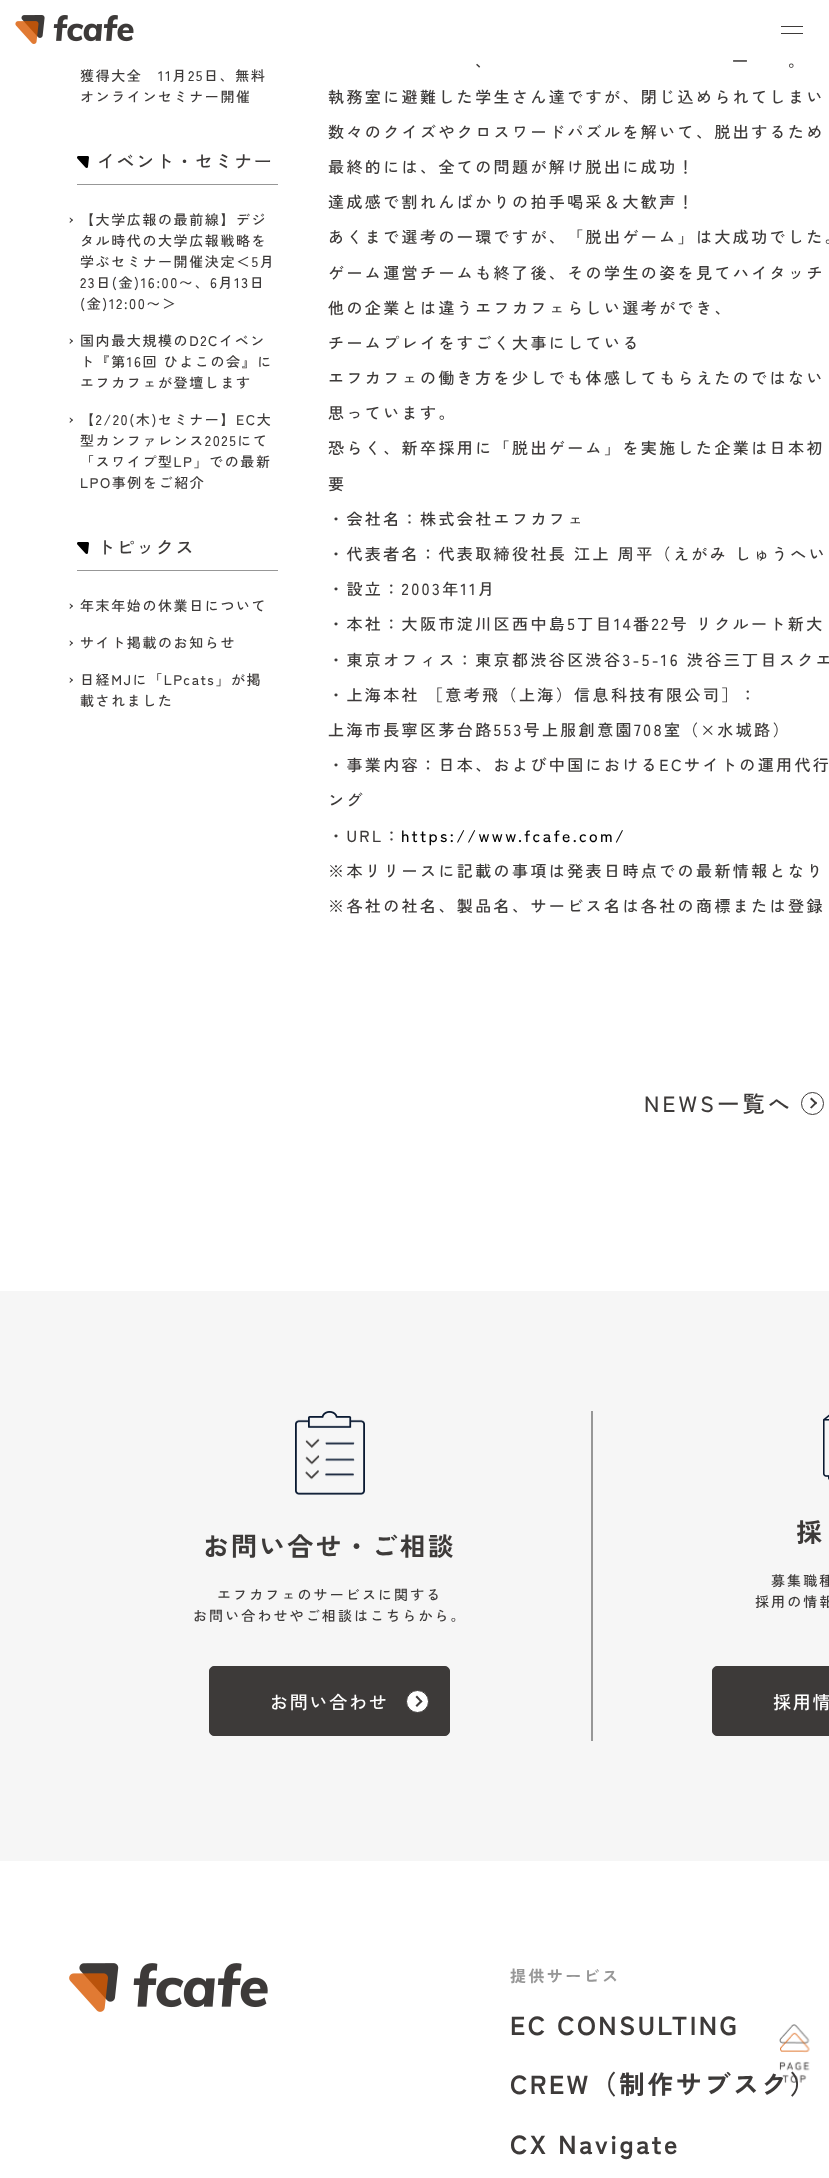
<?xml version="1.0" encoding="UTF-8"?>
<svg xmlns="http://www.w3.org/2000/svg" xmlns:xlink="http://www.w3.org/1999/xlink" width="829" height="2178">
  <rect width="100%" height="100%" fill="#ffffff" />
  <image x="15" y="15" width="119" height="29" xlink:href="image1.png" />
  <rect x="781" y="26" width="22" height="1" fill="#3d3a39" />
  <rect x="781" y="33" width="22" height="1" fill="#3d3a39" />
  <rect x="77" y="184" width="201" height="1" fill="#979797" />
  <image x="77" y="156" width="12" height="12" xlink:href="image2.png" />
  <path d="M 70 217.5 l 3 2.5 l -1 1 l -2.5 -3 z" fill="#3d3a39" />
  <path d="M 72 219.5 l 1 0.5 l -3 3 l -0.5 -1 z" fill="#3d3a39" />
  <path d="M 70 338.5 l 3 2.5 l -1 1 l -2.5 -3 z" fill="#3d3a39" />
  <path d="M 72 340.5 l 1 0.5 l -3 3 l -0.5 -1 z" fill="#3d3a39" />
  <path d="M 70 417.5 l 3 2.5 l -1 1 l -2.5 -3 z" fill="#3d3a39" />
  <path d="M 72 419.5 l 1 0.5 l -3 3 l -0.5 -1 z" fill="#3d3a39" />
  <rect x="77" y="570" width="201" height="1" fill="#979797" />
  <image x="77" y="542" width="12" height="12" xlink:href="image2.png" />
  <path d="M 70 603.5 l 3 2.5 l -1 1 l -2.5 -3 z" fill="#3d3a39" />
  <path d="M 72 605.5 l 1 0.5 l -3 3 l -0.5 -1 z" fill="#3d3a39" />
  <path d="M 70 640.5 l 3 2.5 l -1 1 l -2.5 -3 z" fill="#3d3a39" />
  <path d="M 72 642.5 l 1 0.5 l -3 3 l -0.5 -1 z" fill="#3d3a39" />
  <path d="M 70 677.5 l 3 2.5 l -1 1 l -2.5 -3 z" fill="#3d3a39" />
  <path d="M 72 679.5 l 1 0.5 l -3 3 l -0.5 -1 z" fill="#3d3a39" />
  <circle cx="812.5" cy="1103.5" r="11" fill="none" stroke="#3d3a39" />
  <path d="M 811.5 1097.5 l 5.5 5.5 l -1 1.5 l -6 -5.5 z" fill="#3d3a39" />
  <path d="M 816 1101.5 l 1 1.5 l -5.5 5.5 l -1.5 -1 z" fill="#3d3a39" />
  <rect y="1291" width="829" height="570" fill="#f6f6f6" />
  <image x="295" y="1411" width="70" height="84" xlink:href="image3.png" />
  <rect x="209.5" y="1666.5" width="240" height="69" rx="4.5" fill="#3d3a39" stroke="#3d3a39" />
  <circle cx="417.5" cy="1701.5" r="11" fill="#ffffff" stroke="#3d3a39" />
  <path d="M 417 1695.5 l 5.5 6 l -1.5 1 l -5.5 -5.5 z" fill="#3d3a39" />
  <path d="M 421 1700 l 1.5 1.5 l -5.5 5.5 l -1.5 -1.5 z" fill="#3d3a39" />
  <rect x="591" y="1411" width="2" height="330" fill="#979797" />
  <image x="823" y="1414" width="6" height="66" xlink:href="image4.png" />
  <rect x="712.5" y="1666.5" width="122" height="69" rx="4.5" fill="#3d3a39" stroke="#3d3a39" />
  <image x="69" y="1963" width="199" height="49" xlink:href="image5.png" />
  <text x="80" y="81" style="font-family: Zen Kaku Gothic New; font-size: 14px; font-weight: 500; letter-spacing: 1.6px; fill: #3d3a39">獲得大全　11月25日、無料</text>
  <text x="80" y="102" style="font-family: Zen Kaku Gothic New; font-size: 14px; font-weight: 500; letter-spacing: 1.6px; fill: #3d3a39">オンラインセミナー開催</text>
  <text x="97" y="168" style="font-family: Zen Kaku Gothic New; font-size: 18px; font-weight: 500; letter-spacing: 1.6px; fill: #3d3a39">イベント・セミナー</text>
  <text x="80" y="225" style="font-family: Zen Kaku Gothic New; font-size: 14px; font-weight: 500; letter-spacing: 1.6px; fill: #3d3a39">【大学広報の最前線】デジ</text>
  <text x="80" y="246" style="font-family: Zen Kaku Gothic New; font-size: 14px; font-weight: 500; letter-spacing: 1.6px; fill: #3d3a39">タル時代の大学広報戦略を</text>
  <text x="80" y="267" style="font-family: Zen Kaku Gothic New; font-size: 14px; font-weight: 500; letter-spacing: 1.6px; fill: #3d3a39">学ぶセミナー開催決定＜5月</text>
  <text x="80" y="288" style="font-family: Zen Kaku Gothic New; font-size: 14px; font-weight: 500; letter-spacing: 1.6px; fill: #3d3a39">23日(金)16:00〜、6月13日</text>
  <text x="80" y="309" style="font-family: Zen Kaku Gothic New; font-size: 14px; font-weight: 500; letter-spacing: 1.6px; fill: #3d3a39">(金)12:00〜＞</text>
  <text x="80" y="346" style="font-family: Zen Kaku Gothic New; font-size: 14px; font-weight: 500; letter-spacing: 1.6px; fill: #3d3a39">国内最大規模のD2Cイベン</text>
  <text x="80" y="367" style="font-family: Zen Kaku Gothic New; font-size: 14px; font-weight: 500; letter-spacing: 1.6px; fill: #3d3a39">ト『第16回 ひよこの会』に</text>
  <text x="80" y="388" style="font-family: Zen Kaku Gothic New; font-size: 14px; font-weight: 500; letter-spacing: 1.6px; fill: #3d3a39">エフカフェが登壇します</text>
  <text x="80" y="425" style="font-family: Zen Kaku Gothic New; font-size: 14px; font-weight: 500; letter-spacing: 1.6px; fill: #3d3a39">【2/20(木)セミナー】EC大</text>
  <text x="80" y="446" style="font-family: Zen Kaku Gothic New; font-size: 14px; font-weight: 500; letter-spacing: 1.6px; fill: #3d3a39">型カンファレンス2025にて</text>
  <text x="80" y="467" style="font-family: Zen Kaku Gothic New; font-size: 14px; font-weight: 500; letter-spacing: 1.6px; fill: #3d3a39">「スワイプ型LP」での最新</text>
  <text x="80" y="488" style="font-family: Zen Kaku Gothic New; font-size: 14px; font-weight: 500; letter-spacing: 1.6px; fill: #3d3a39">LPO事例をご紹介</text>
  <text x="97" y="554" style="font-family: Zen Kaku Gothic New; font-size: 18px; font-weight: 500; letter-spacing: 1.6px; fill: #3d3a39">トピックス</text>
  <text x="80" y="611" style="font-family: Zen Kaku Gothic New; font-size: 14px; font-weight: 500; letter-spacing: 1.6px; fill: #3d3a39">年末年始の休業日について</text>
  <text x="80" y="648" style="font-family: Zen Kaku Gothic New; font-size: 14px; font-weight: 500; letter-spacing: 1.6px; fill: #3d3a39">サイト掲載のお知らせ</text>
  <text x="80" y="685" style="font-family: Zen Kaku Gothic New; font-size: 14px; font-weight: 500; letter-spacing: 1.6px; fill: #3d3a39">日経MJに「LPcats」が掲</text>
  <text x="80" y="706" style="font-family: Zen Kaku Gothic New; font-size: 14px; font-weight: 500; letter-spacing: 1.6px; fill: #3d3a39">載されました</text>
  <text x="732" y="67" style="font-family: Zen Kaku Gothic New; font-size: 16px; font-weight: 500; letter-spacing: 2.4px; fill: #3d3a39">一</text>
  <text x="475" y="67" style="font-family: Zen Kaku Gothic New; font-size: 16px; font-weight: 500; letter-spacing: 2.4px; fill: #3d3a39">、</text>
  <text x="788" y="67" style="font-family: Zen Kaku Gothic New; font-size: 16px; font-weight: 500; letter-spacing: 2.4px; fill: #3d3a39">。</text>
  <text x="328" y="103" style="font-family: Zen Kaku Gothic New; font-size: 16px; font-weight: 500; letter-spacing: 2.4px; fill: #3d3a39">執務室に避難した学生さん達ですが、閉じ込められてしまい</text>
  <text x="328" y="138" style="font-family: Zen Kaku Gothic New; font-size: 16px; font-weight: 500; letter-spacing: 2.4px; fill: #3d3a39">数々のクイズやクロスワードパズルを解いて、脱出するため</text>
  <text x="328" y="173" style="font-family: Zen Kaku Gothic New; font-size: 16px; font-weight: 500; letter-spacing: 2.4px; fill: #3d3a39">最終的には、全ての問題が解け脱出に成功！</text>
  <text x="328" y="208" style="font-family: Zen Kaku Gothic New; font-size: 16px; font-weight: 500; letter-spacing: 2.4px; fill: #3d3a39">達成感で割れんばかりの拍手喝采＆大歓声！</text>
  <text x="328" y="243" style="font-family: Zen Kaku Gothic New; font-size: 16px; font-weight: 500; letter-spacing: 2.4px; fill: #3d3a39">あくまで選考の一環ですが、「脱出ゲーム」は大成功でした。</text>
  <text x="328" y="279" style="font-family: Zen Kaku Gothic New; font-size: 16px; font-weight: 500; letter-spacing: 2.4px; fill: #3d3a39">ゲーム運営チームも終了後、その学生の姿を見てハイタッチ</text>
  <text x="328" y="314" style="font-family: Zen Kaku Gothic New; font-size: 16px; font-weight: 500; letter-spacing: 2.4px; fill: #3d3a39">他の企業とは違うエフカフェらしい選考ができ、</text>
  <text x="328" y="349" style="font-family: Zen Kaku Gothic New; font-size: 16px; font-weight: 500; letter-spacing: 2.4px; fill: #3d3a39">チームプレイをすごく大事にしている</text>
  <text x="328" y="384" style="font-family: Zen Kaku Gothic New; font-size: 16px; font-weight: 500; letter-spacing: 2.4px; fill: #3d3a39">エフカフェの働き方を少しでも体感してもらえたのではない</text>
  <text x="328" y="419" style="font-family: Zen Kaku Gothic New; font-size: 16px; font-weight: 500; letter-spacing: 2.4px; fill: #3d3a39">思っています。</text>
  <text x="328" y="454" style="font-family: Zen Kaku Gothic New; font-size: 16px; font-weight: 500; letter-spacing: 2.4px; fill: #3d3a39">恐らく、新卒採用に「脱出ゲーム」を実施した企業は日本初</text>
  <text x="328" y="490" style="font-family: Zen Kaku Gothic New; font-size: 16px; font-weight: 500; letter-spacing: 2.4px; fill: #3d3a39">要</text>
  <text x="328" y="525" style="font-family: Zen Kaku Gothic New; font-size: 16px; font-weight: 500; letter-spacing: 2.4px; fill: #3d3a39">・会社名：株式会社エフカフェ</text>
  <text x="328" y="560" style="font-family: Zen Kaku Gothic New; font-size: 16px; font-weight: 500; letter-spacing: 2.4px; fill: #3d3a39">・代表者名：代表取締役社長 江上 周平（えがみ しゅうへい</text>
  <text x="328" y="595" style="font-family: Zen Kaku Gothic New; font-size: 16px; font-weight: 500; letter-spacing: 2.4px; fill: #3d3a39">・設立：2003年11月</text>
  <text x="328" y="630" style="font-family: Zen Kaku Gothic New; font-size: 16px; font-weight: 500; letter-spacing: 2.4px; fill: #3d3a39">・本社：大阪市淀川区西中島5丁目14番22号 リクルート新大</text>
  <text x="328" y="666" style="font-family: Zen Kaku Gothic New; font-size: 16px; font-weight: 500; letter-spacing: 2.4px; fill: #3d3a39">・東京オフィス：東京都渋谷区渋谷3-5-16 渋谷三丁目スクエ</text>
  <text x="328" y="701" style="font-family: Zen Kaku Gothic New; font-size: 16px; font-weight: 500; letter-spacing: 2.4px; fill: #3d3a39">・上海本社 ［意考飛（上海）信息科技有限公司］：</text>
  <text x="328" y="736" style="font-family: Zen Kaku Gothic New; font-size: 16px; font-weight: 500; letter-spacing: 2.4px; fill: #3d3a39">上海市長寧区茅台路553号上服創意園708室（×水城路）</text>
  <text x="328" y="771" style="font-family: Zen Kaku Gothic New; font-size: 16px; font-weight: 500; letter-spacing: 2.4px; fill: #3d3a39">・事業内容：日本、および中国におけるECサイトの運用代行</text>
  <text x="328" y="806" style="font-family: Zen Kaku Gothic New; font-size: 16px; font-weight: 500; letter-spacing: 2.4px; fill: #3d3a39">ング</text>
  <text x="328" y="842" style="font-family: Zen Kaku Gothic New; font-size: 16px; font-weight: 500; letter-spacing: 2.4px; fill: #3d3a39">・URL：</text>
  <text x="401" y="842" style="font-family: Zen Kaku Gothic New; font-size: 16px; font-weight: 500; letter-spacing: 2.4px; fill: #000000">https://www.fcafe.com/</text>
  <text x="328" y="877" style="font-family: Zen Kaku Gothic New; font-size: 16px; font-weight: 500; letter-spacing: 2.4px; fill: #3d3a39">※本リリースに記載の事項は発表日時点での最新情報となり</text>
  <text x="328" y="912" style="font-family: Zen Kaku Gothic New; font-size: 16px; font-weight: 500; letter-spacing: 2.4px; fill: #3d3a39">※各社の社名、製品名、サービス名は各社の商標または登録</text>
  <text x="644" y="1112" style="font-family: Zen Kaku Gothic New; font-size: 22px; font-weight: 500; letter-spacing: 3.25px; fill: #3d3a39">NEWS一覧へ</text>
  <text x="203" y="1556" style="font-family: Zen Kaku Gothic New; font-size: 26px; font-weight: bold; letter-spacing: 2.1px; fill: #3d3a39">お問い合せ・ご相談</text>
  <text x="217" y="1600" style="font-family: Zen Kaku Gothic New; font-size: 14px; font-weight: 500; letter-spacing: 2.1px; fill: #3d3a39">エフカフェのサービスに関する</text>
  <text x="193" y="1621" style="font-family: Zen Kaku Gothic New; font-size: 14px; font-weight: 500; letter-spacing: 2.1px; fill: #3d3a39">お問い合わせやご相談はこちらから。</text>
  <text x="270" y="1709" style="font-family: Zen Kaku Gothic New; font-size: 18px; font-weight: 500; letter-spacing: 1.75px; fill: #ffffff">お問い合わせ</text>
  <text x="796" y="1542" style="font-family: Zen Kaku Gothic New; font-size: 26px; font-weight: bold; letter-spacing: 2.1px; fill: #3d3a39">採</text>
  <text x="771" y="1586" style="font-family: Zen Kaku Gothic New; font-size: 14px; font-weight: 500; letter-spacing: 2.1px; fill: #3d3a39">募集職種</text>
  <text x="755" y="1607" style="font-family: Zen Kaku Gothic New; font-size: 14px; font-weight: 500; letter-spacing: 2.1px; fill: #3d3a39">採用の情報</text>
  <text x="773" y="1709" style="font-family: Zen Kaku Gothic New; font-size: 18px; font-weight: 500; letter-spacing: 1.75px; fill: #ffffff">採用情</text>
  <text x="510" y="1982" style="font-family: Zen Kaku Gothic New; font-size: 16px; font-weight: bold; letter-spacing: 2.4px; fill: #979797">提供サービス</text>
  <text x="510" y="2035" style="font-family: Zen Kaku Gothic New; font-size: 26px; font-weight: bold; letter-spacing: 2.4px; fill: #3d3a39">EC CONSULTING</text>
  <text x="510" y="2094" style="font-family: Zen Kaku Gothic New; font-size: 26px; font-weight: bold; letter-spacing: 2.4px; fill: #3d3a39">CREW（制作サブスク）</text>
  <text x="510" y="2154" style="font-family: Zen Kaku Gothic New; font-size: 26px; font-weight: bold; letter-spacing: 2.4px; fill: #3d3a39">CX Navigate</text>
  <image x="779" y="2024" width="31" height="59" xlink:href="image6.png" />
</svg>
